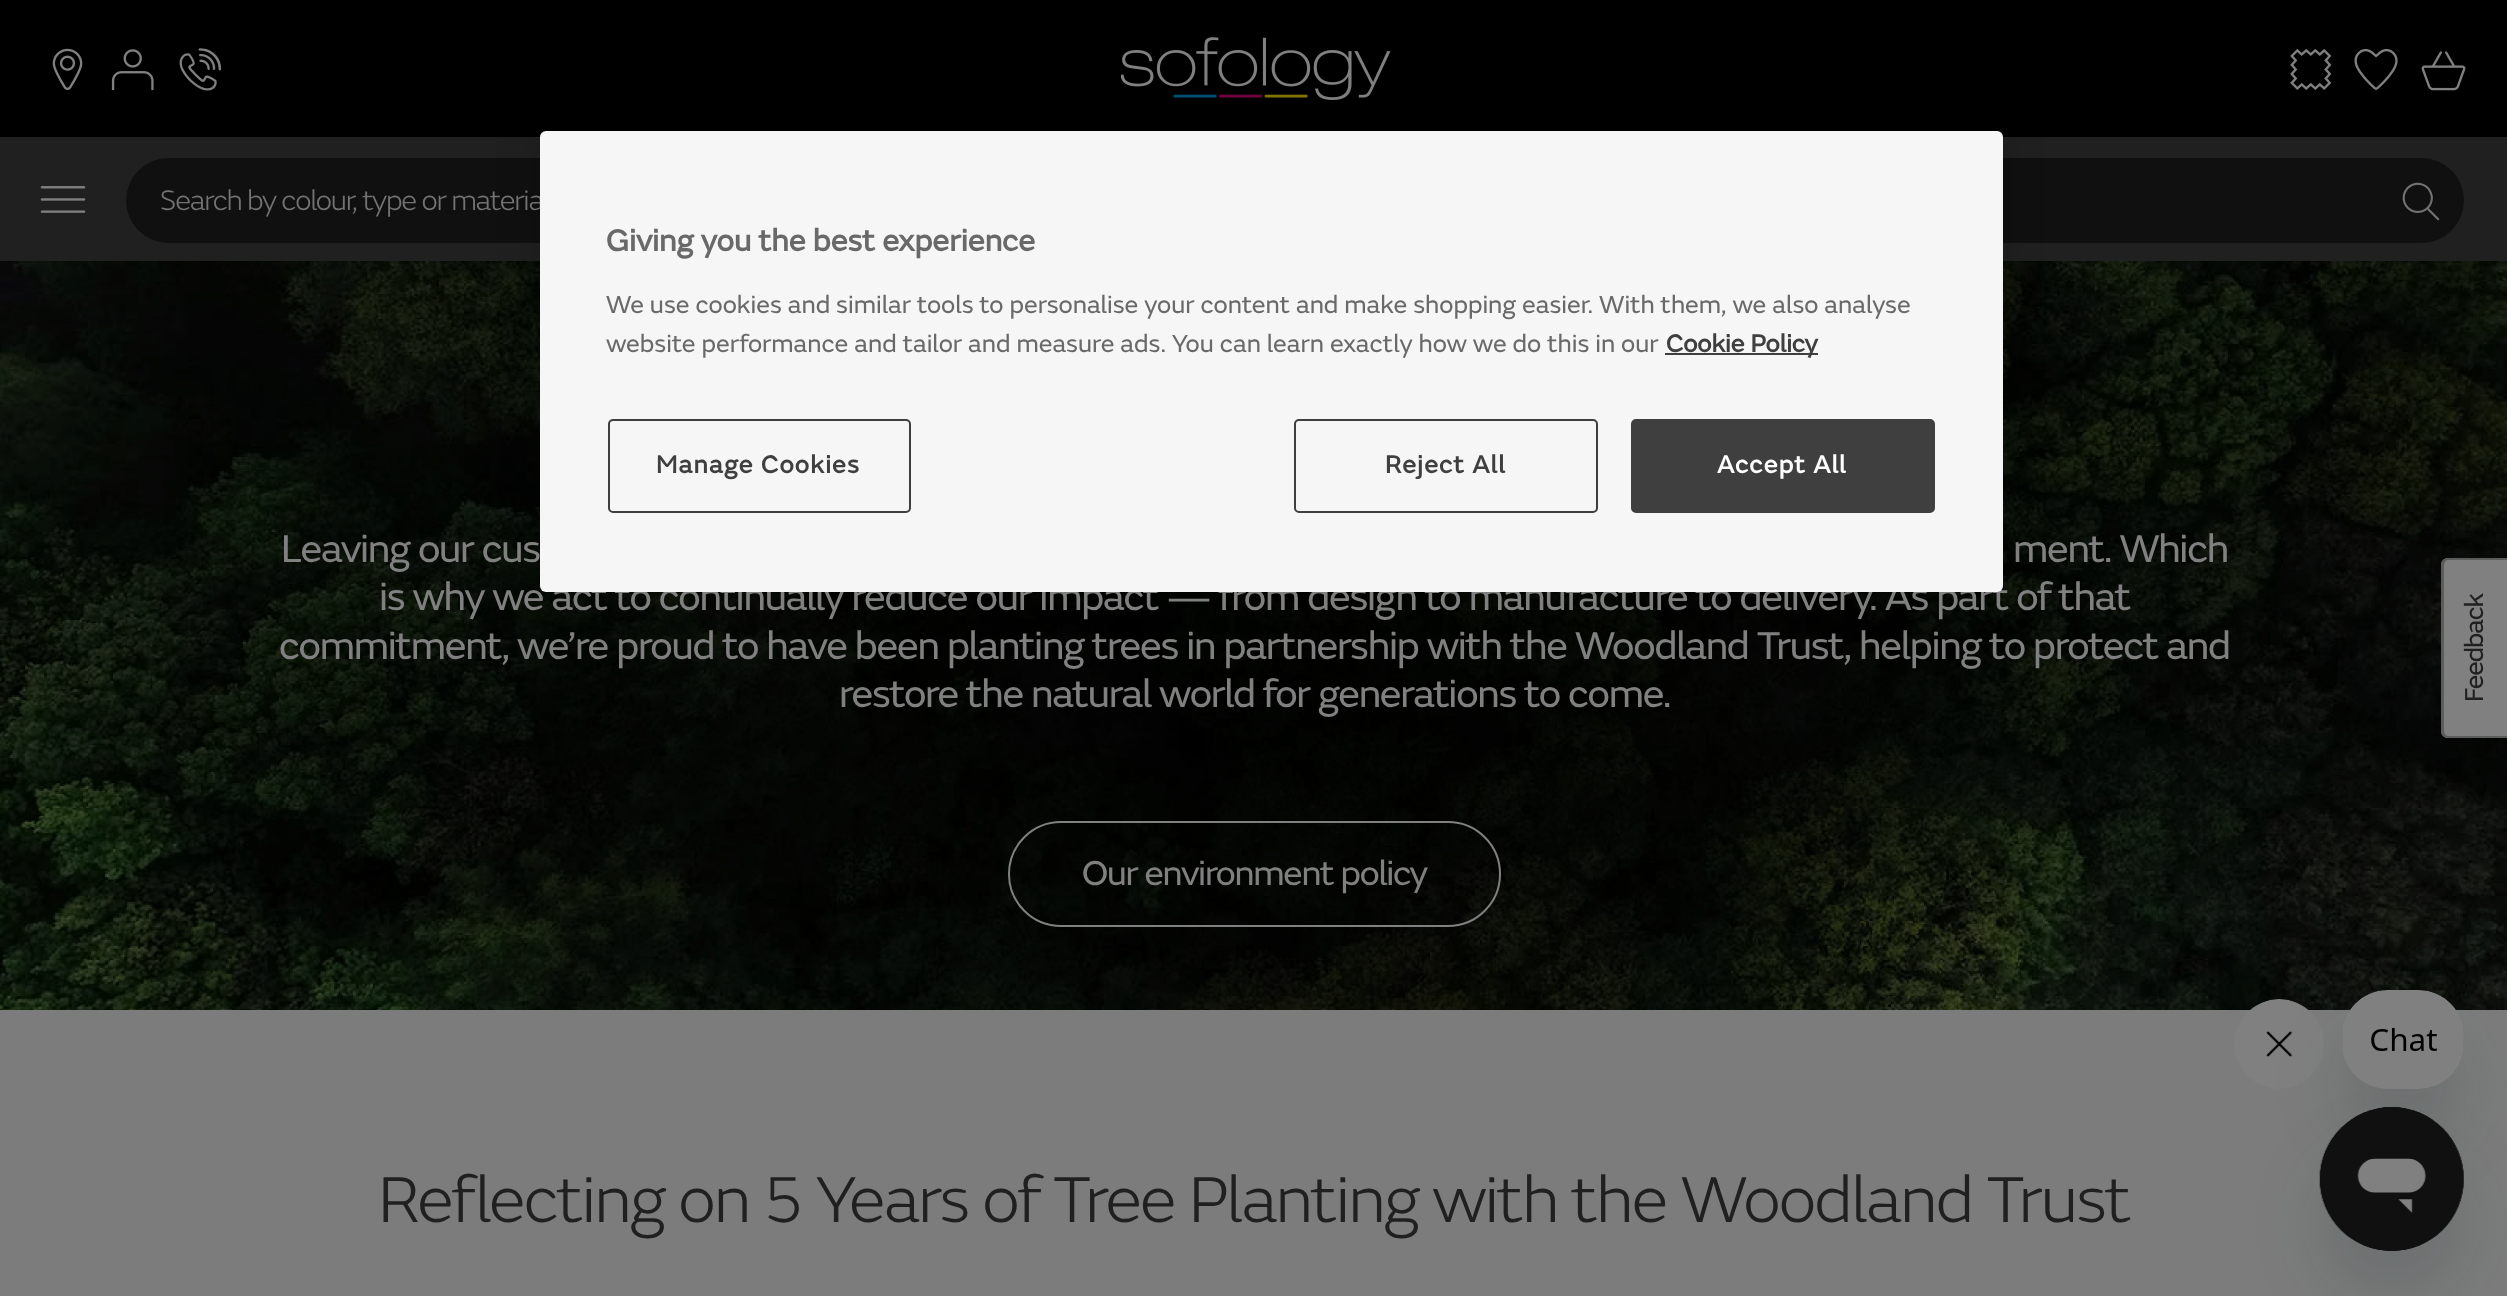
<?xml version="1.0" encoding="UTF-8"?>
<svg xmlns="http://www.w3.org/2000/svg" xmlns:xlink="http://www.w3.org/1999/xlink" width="2507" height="1296">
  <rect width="100%" height="100%" fill="#ffffff" />
  <rect width="2507" height="137" fill="#000000" />
  <image x="52" y="48" width="31" height="42" xlink:href="image1.png" />
  <image x="111" y="49" width="43" height="42" xlink:href="image2.png" />
  <image x="179" y="48" width="43" height="43" xlink:href="image3.png" />
  <image x="1121" y="37" width="270" height="63" xlink:href="image4.png" />
  <image x="2290" y="48" width="42" height="42" xlink:href="image5.png" />
  <image x="2354" y="48" width="44" height="42" xlink:href="image6.png" />
  <image x="2421" y="51" width="45" height="40" xlink:href="image7.png" />
  <rect y="137" width="2507" height="124" fill="#202020" />
  <image x="40" y="186" width="46" height="27" xlink:href="image8.png" />
  <rect x="126" y="158" width="2338" height="85" rx="42.5" fill="#101010" />
  <image x="2402" y="182" width="38" height="39" xlink:href="image9.png" />
  <image x="0" y="261" width="2507" height="749" xlink:href="image10.png" />
  <rect x="1009" y="822" width="491" height="104" rx="52" fill="none" stroke="#808080" stroke-width="2" />
  <rect y="1010" width="2507" height="286" fill="#7c7c7c" />
  <path d="M 2448 558 h 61 v 180 h -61 c -4 0 -7 -3 -7 -7 v -166 c 0 -4 3 -7 7 -7 z" fill="#808080" />
  <path d="M 2448 558 h 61 v 180 h -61 c -4 0 -7 -3 -7 -7 v -166 c 0 -4 3 -7 7 -7 z m 0 2 h 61 v 176 h -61 c -2 0 -4 -2 -4 -5 v -166 c 0 -3 2 -5 4 -5 z" fill="#5c5c5c" fill-rule="evenodd" />
  <rect x="540" y="131" width="1463" height="461" rx="6" fill="#000000" fill-opacity="0.2" filter="blur(20px)" />
  <image x="2234" y="999" width="90" height="90" xlink:href="image12.png" />
  <rect x="2342" y="1035" width="122" height="99" rx="45" fill="#0c2527" fill-opacity="0.15" filter="blur(34px)" />
  <image x="2342" y="990" width="122" height="99" xlink:href="image11.png" />
  <rect x="2320" y="1152" width="144" height="144" rx="72" fill="#0c2527" fill-opacity="0.15" filter="blur(34px)" />
  <image x="2319" y="1107" width="145" height="144" xlink:href="image13.png" />
  <text x="160" y="210" style="font-family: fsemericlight; font-size: 29.25px; font-weight: 300; letter-spacing: -1.22px; fill: #737373">Search by colour, type or materia</text>
  <text x="281" y="562" style="font-family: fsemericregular; font-size: 40.5px; letter-spacing: -1.22px; fill: #808080">Leaving our cus</text>
  <text x="2013" y="562" style="font-family: fsemericregular; font-size: 40.5px; letter-spacing: -1.22px; fill: #808080">ment. Which</text>
  <text x="379" y="610" style="font-family: fsemericregular; font-size: 40.5px; letter-spacing: -1.22px; fill: #808080">is why we act to continually reduce our impact — from design to manufacture to delivery. As part of that</text>
  <text x="279" y="659" style="font-family: fsemericregular; font-size: 40.5px; letter-spacing: -1.22px; fill: #808080">commitment, we’re proud to have been planting trees in partnership with the Woodland Trust, helping to protect and</text>
  <text x="839" y="707" style="font-family: fsemericregular; font-size: 40.5px; letter-spacing: -1.22px; fill: #808080">restore the natural world for generations to come.</text>
  <text x="1082" y="885" style="font-family: fsemericregular; font-size: 36px; letter-spacing: -1.22px; fill: #808080">Our environment policy</text>
  <text x="378" y="1222" style="font-family: fsemericlight; font-size: 67.5px; font-weight: 300; letter-spacing: -1.8px; fill: #202020">Reflecting on 5 Years of Tree Planting with the Woodland Trust</text>
  <text x="2483" y="702" transform="rotate(-90 2483 702)" style="font-family: fsemericregular; font-size: 27px; letter-spacing: -1px; fill: #202020">Feedback</text>
  <rect x="540" y="131" width="1463" height="461" rx="6" fill="#f6f6f6" />
  <text x="606" y="251" style="font-family: fsemericregular; font-size: 31.5px; font-weight: bold; fill: #696969">Giving you the best experience</text>
  <text x="606" y="313" style="font-family: fsemericregular; font-size: 25.6px; fill: #696969">We use cookies and similar tools to personalise your content and make shopping easier. With them, we also analyse</text>
  <text x="606" y="352" style="font-family: fsemericregular; font-size: 25.6px; fill: #696969">website performance and tailor and measure ads. You can learn exactly how we do this in our</text>
  <rect x="1665" y="353" width="153" height="2" fill="#3f3f3f" />
  <text x="1666" y="352" style="font-family: fsemericregular; font-size: 25.6px; font-weight: bold; fill: #3f3f3f">Cookie Policy</text>
  <rect x="609" y="420" width="301" height="92" rx="4" fill="none" stroke="#3f3f3f" stroke-width="2" />
  <text x="656" y="473" style="font-family: fsemericregular; font-size: 25.6px; font-weight: bold; letter-spacing: 1.25px; fill: #3f3f3f">Manage Cookies</text>
  <rect x="1295" y="420" width="302" height="92" rx="4" fill="none" stroke="#3f3f3f" stroke-width="2" />
  <text x="1385" y="473" style="font-family: fsemericregular; font-size: 25.6px; font-weight: bold; letter-spacing: 1.25px; fill: #3f3f3f">Reject All</text>
  <rect x="1632" y="420" width="302" height="92" rx="4" fill="#3f3f3f" stroke="#3f3f3f" stroke-width="2" />
  <text x="1717" y="473" style="font-family: fsemericregular; font-size: 25.6px; font-weight: bold; letter-spacing: 1.25px; fill: #ffffff">Accept All</text>
</svg>
